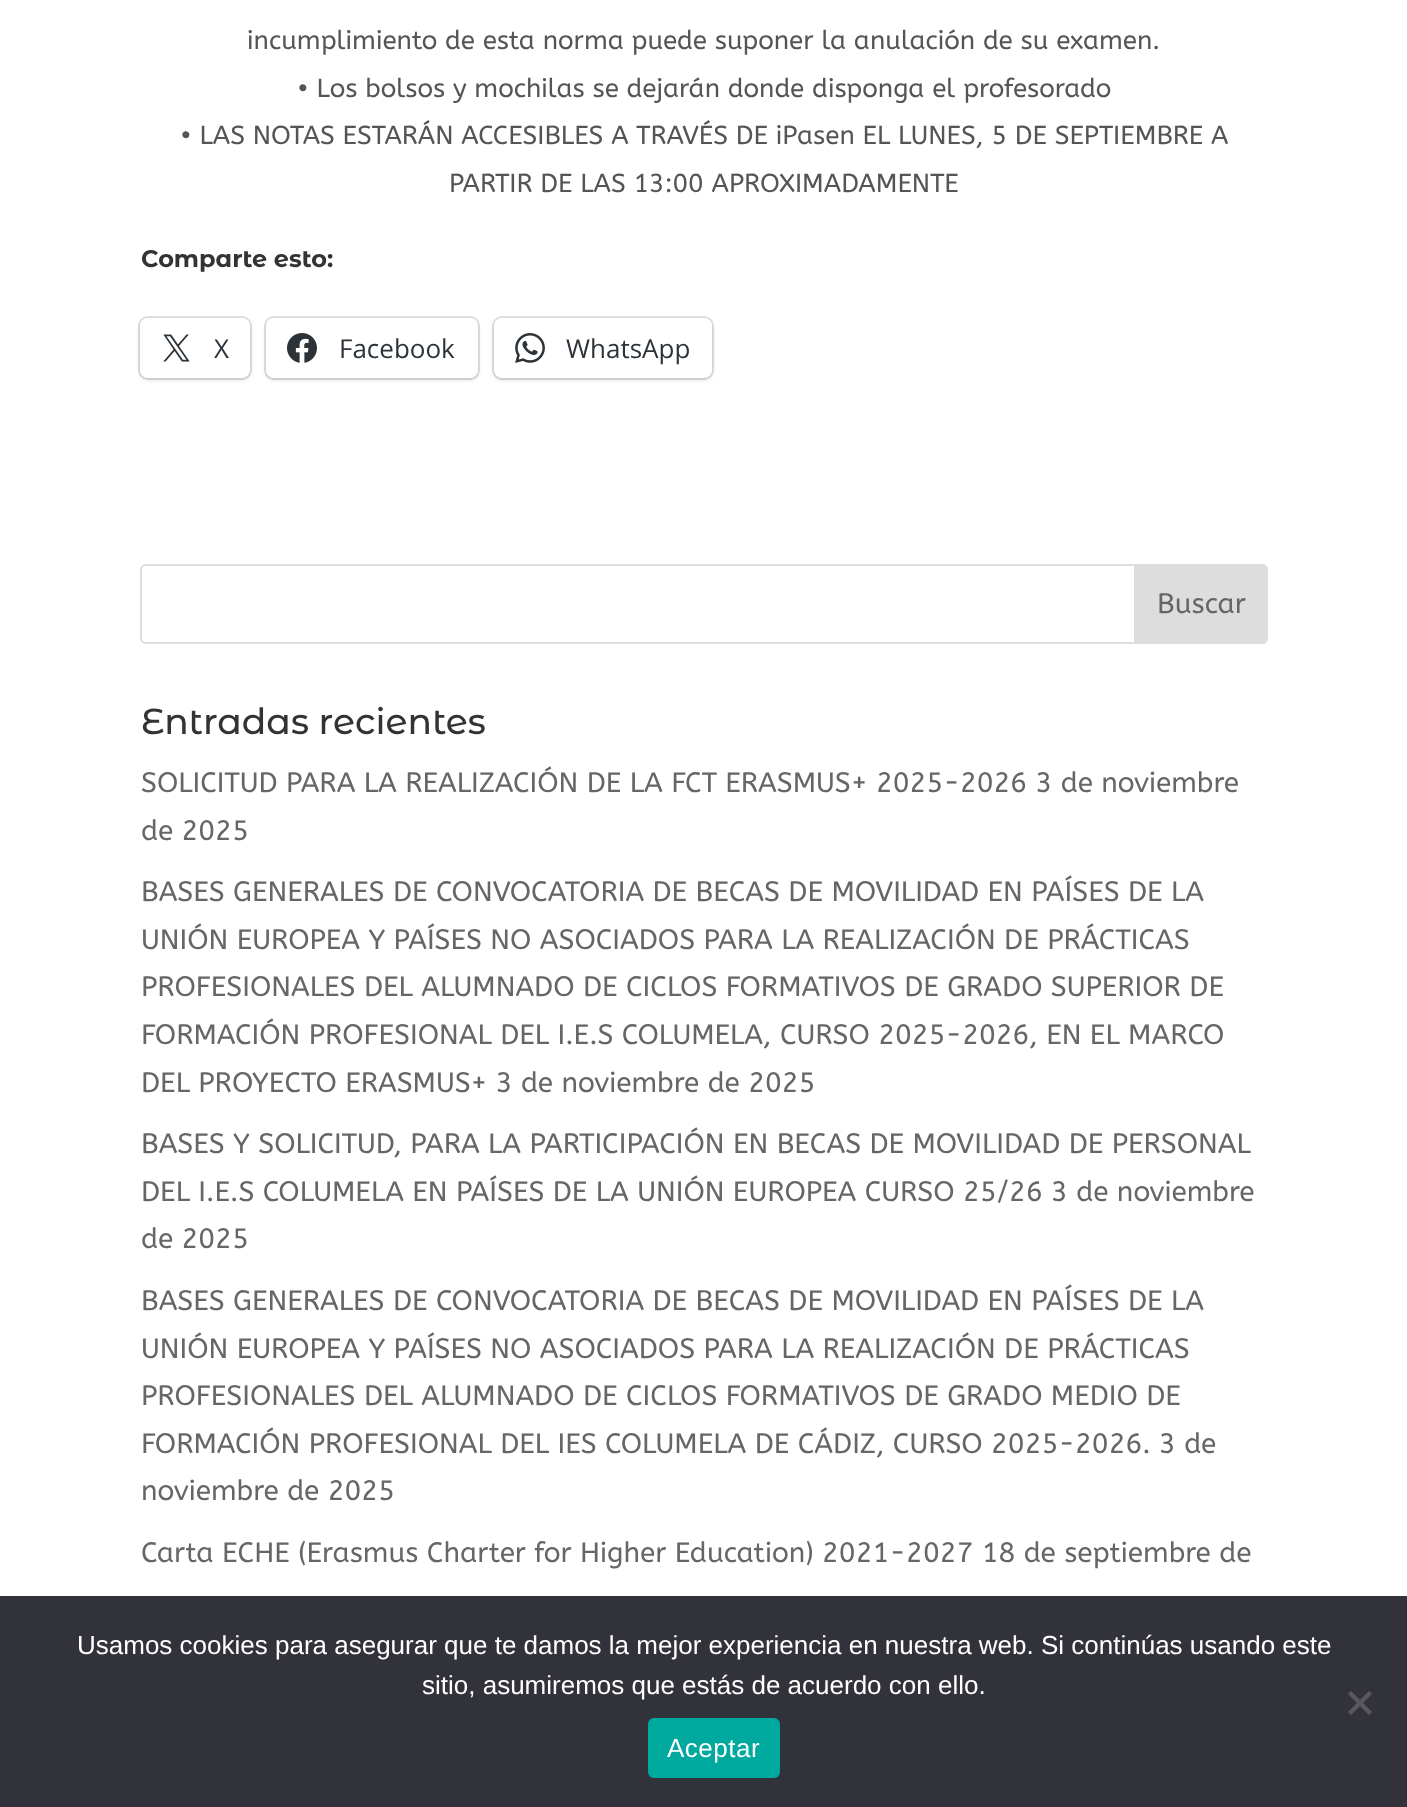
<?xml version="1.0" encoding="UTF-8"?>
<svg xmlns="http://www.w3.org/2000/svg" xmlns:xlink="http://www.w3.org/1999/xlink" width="1407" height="1807">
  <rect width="100%" height="100%" fill="#ffffff" />
  <rect x="139" y="317" width="112" height="62" rx="9" fill="none" stroke="#e0e0e0" stroke-width="2" />
  <rect x="140" y="320" width="110" height="60" rx="8" fill="#000000" fill-opacity="0.12" filter="blur(2px)" />
  <rect x="140" y="318" width="110" height="60" rx="8" fill="#ffffff" />
  <image x="163" y="334" width="27" height="28" xlink:href="image1.png" />
  <rect x="265" y="317" width="214" height="62" rx="9" fill="none" stroke="#e0e0e0" stroke-width="2" />
  <rect x="266" y="320" width="212" height="60" rx="8" fill="#000000" fill-opacity="0.12" filter="blur(2px)" />
  <rect x="266" y="318" width="212" height="60" rx="8" fill="#ffffff" />
  <image x="287" y="333" width="30" height="30" xlink:href="image2.png" />
  <rect x="493" y="317" width="220" height="62" rx="9" fill="none" stroke="#e0e0e0" stroke-width="2" />
  <rect x="494" y="320" width="218" height="60" rx="8" fill="#000000" fill-opacity="0.12" filter="blur(2px)" />
  <rect x="494" y="318" width="218" height="60" rx="8" fill="#ffffff" />
  <image x="515" y="333" width="30" height="30" xlink:href="image3.png" />
  <rect x="141" y="565" width="1126" height="78" rx="5" fill="none" stroke="#dddddd" stroke-width="2" />
  <path d="M 1135 565 h 127 c 3 0 5 2 5 5 v 68 c 0 3 -2 5 -5 5 h -127 z" fill="#dddddd" stroke="#dddddd" stroke-width="2" />
  <rect y="1596" width="1407" height="211" fill="#32323a" />
  <path d="M 1369 1691 l 3 3 l -21 21 l -3 -3 z" fill="#59595d" />
  <path d="M 1348 1694 l 3 -3 l 21 21 l -3 3 z" fill="#59595d" />
  <rect x="648" y="1718" width="132" height="60" rx="6" fill="#00a99d" />
  <text x="247" y="49" style="font-family: ABeeZee; font-size: 26px; fill: #555555">incumplimiento de esta norma puede suponer la anulación de su examen.</text>
  <text x="297" y="97" style="font-family: ABeeZee; font-size: 26px; fill: #555555">• Los bolsos y mochilas se dejarán donde disponga el profesorado</text>
  <text x="180" y="144" style="font-family: ABeeZee; font-size: 26px; fill: #555555">• LAS NOTAS ESTARÁN ACCESIBLES A TRAVÉS DE iPasen EL LUNES, 5 DE SEPTIEMBRE A</text>
  <text x="449" y="192" style="font-family: ABeeZee; font-size: 26px; fill: #555555">PARTIR DE LAS 13:00 APROXIMADAMENTE</text>
  <text x="141" y="267" style="font-family: Montserrat Alternates; font-size: 24px; font-weight: bold; fill: #333333">Comparte esto:</text>
  <text x="214" y="358" style="font-family: Open Sans; font-size: 26px; fill: #2c3338">X</text>
  <text x="339" y="358" style="font-family: Open Sans; font-size: 26px; fill: #2c3338">Facebook</text>
  <text x="566" y="358" style="font-family: Open Sans; font-size: 26px; fill: #2c3338">WhatsApp</text>
  <text x="1157" y="613" style="font-family: ABeeZee; font-size: 28px; fill: #666666">Buscar</text>
  <text x="141" y="734" style="font-family: Montserrat Alternates; font-size: 36px; font-weight: 500; fill: #333333">Entradas recientes</text>
  <text x="141" y="792" style="font-family: ABeeZee; font-size: 28px; fill: #666666">SOLICITUD PARA LA REALIZACIÓN DE LA FCT ERASMUS+ 2025-2026 3 de noviembre</text>
  <text x="141" y="840" style="font-family: ABeeZee; font-size: 28px; fill: #666666">de 2025</text>
  <text x="141" y="901" style="font-family: ABeeZee; font-size: 28px; fill: #666666">BASES GENERALES DE CONVOCATORIA DE BECAS DE MOVILIDAD EN PAÍSES DE LA</text>
  <text x="141" y="949" style="font-family: ABeeZee; font-size: 28px; fill: #666666">UNIÓN EUROPEA Y PAÍSES NO ASOCIADOS PARA LA REALIZACIÓN DE PRÁCTICAS</text>
  <text x="141" y="996" style="font-family: ABeeZee; font-size: 28px; fill: #666666">PROFESIONALES DEL ALUMNADO DE CICLOS FORMATIVOS DE GRADO SUPERIOR DE</text>
  <text x="141" y="1044" style="font-family: ABeeZee; font-size: 28px; fill: #666666">FORMACIÓN PROFESIONAL DEL I.E.S COLUMELA, CURSO 2025-2026, EN EL MARCO</text>
  <text x="141" y="1092" style="font-family: ABeeZee; font-size: 28px; fill: #666666">DEL PROYECTO ERASMUS+ 3 de noviembre de 2025</text>
  <text x="141" y="1153" style="font-family: ABeeZee; font-size: 28px; fill: #666666">BASES Y SOLICITUD, PARA LA PARTICIPACIÓN EN BECAS DE MOVILIDAD DE PERSONAL</text>
  <text x="141" y="1201" style="font-family: ABeeZee; font-size: 28px; fill: #666666">DEL I.E.S COLUMELA EN PAÍSES DE LA UNIÓN EUROPEA CURSO 25/26 3 de noviembre</text>
  <text x="141" y="1248" style="font-family: ABeeZee; font-size: 28px; fill: #666666">de 2025</text>
  <text x="141" y="1310" style="font-family: ABeeZee; font-size: 28px; fill: #666666">BASES GENERALES DE CONVOCATORIA DE BECAS DE MOVILIDAD EN PAÍSES DE LA</text>
  <text x="141" y="1358" style="font-family: ABeeZee; font-size: 28px; fill: #666666">UNIÓN EUROPEA Y PAÍSES NO ASOCIADOS PARA LA REALIZACIÓN DE PRÁCTICAS</text>
  <text x="141" y="1405" style="font-family: ABeeZee; font-size: 28px; fill: #666666">PROFESIONALES DEL ALUMNADO DE CICLOS FORMATIVOS DE GRADO MEDIO DE</text>
  <text x="141" y="1453" style="font-family: ABeeZee; font-size: 28px; fill: #666666">FORMACIÓN PROFESIONAL DEL IES COLUMELA DE CÁDIZ, CURSO 2025-2026. 3 de</text>
  <text x="141" y="1500" style="font-family: ABeeZee; font-size: 28px; fill: #666666">noviembre de 2025</text>
  <text x="141" y="1562" style="font-family: ABeeZee; font-size: 28px; fill: #666666">Carta ECHE (Erasmus Charter for Higher Education) 2021-2027 18 de septiembre de</text>
  <text x="77" y="1654" style="font-family: Liberation Sans; font-size: 26px; fill: #ffffff">Usamos cookies para asegurar que te damos la mejor experiencia en nuestra web. Si continúas usando este</text>
  <text x="422" y="1694" style="font-family: Liberation Sans; font-size: 26px; fill: #ffffff">sitio, asumiremos que estás de acuerdo con ello.</text>
  <text x="667" y="1757" style="font-family: Liberation Sans; font-size: 26px; letter-spacing: 0.5px; fill: #ffffff">Aceptar</text>
</svg>
